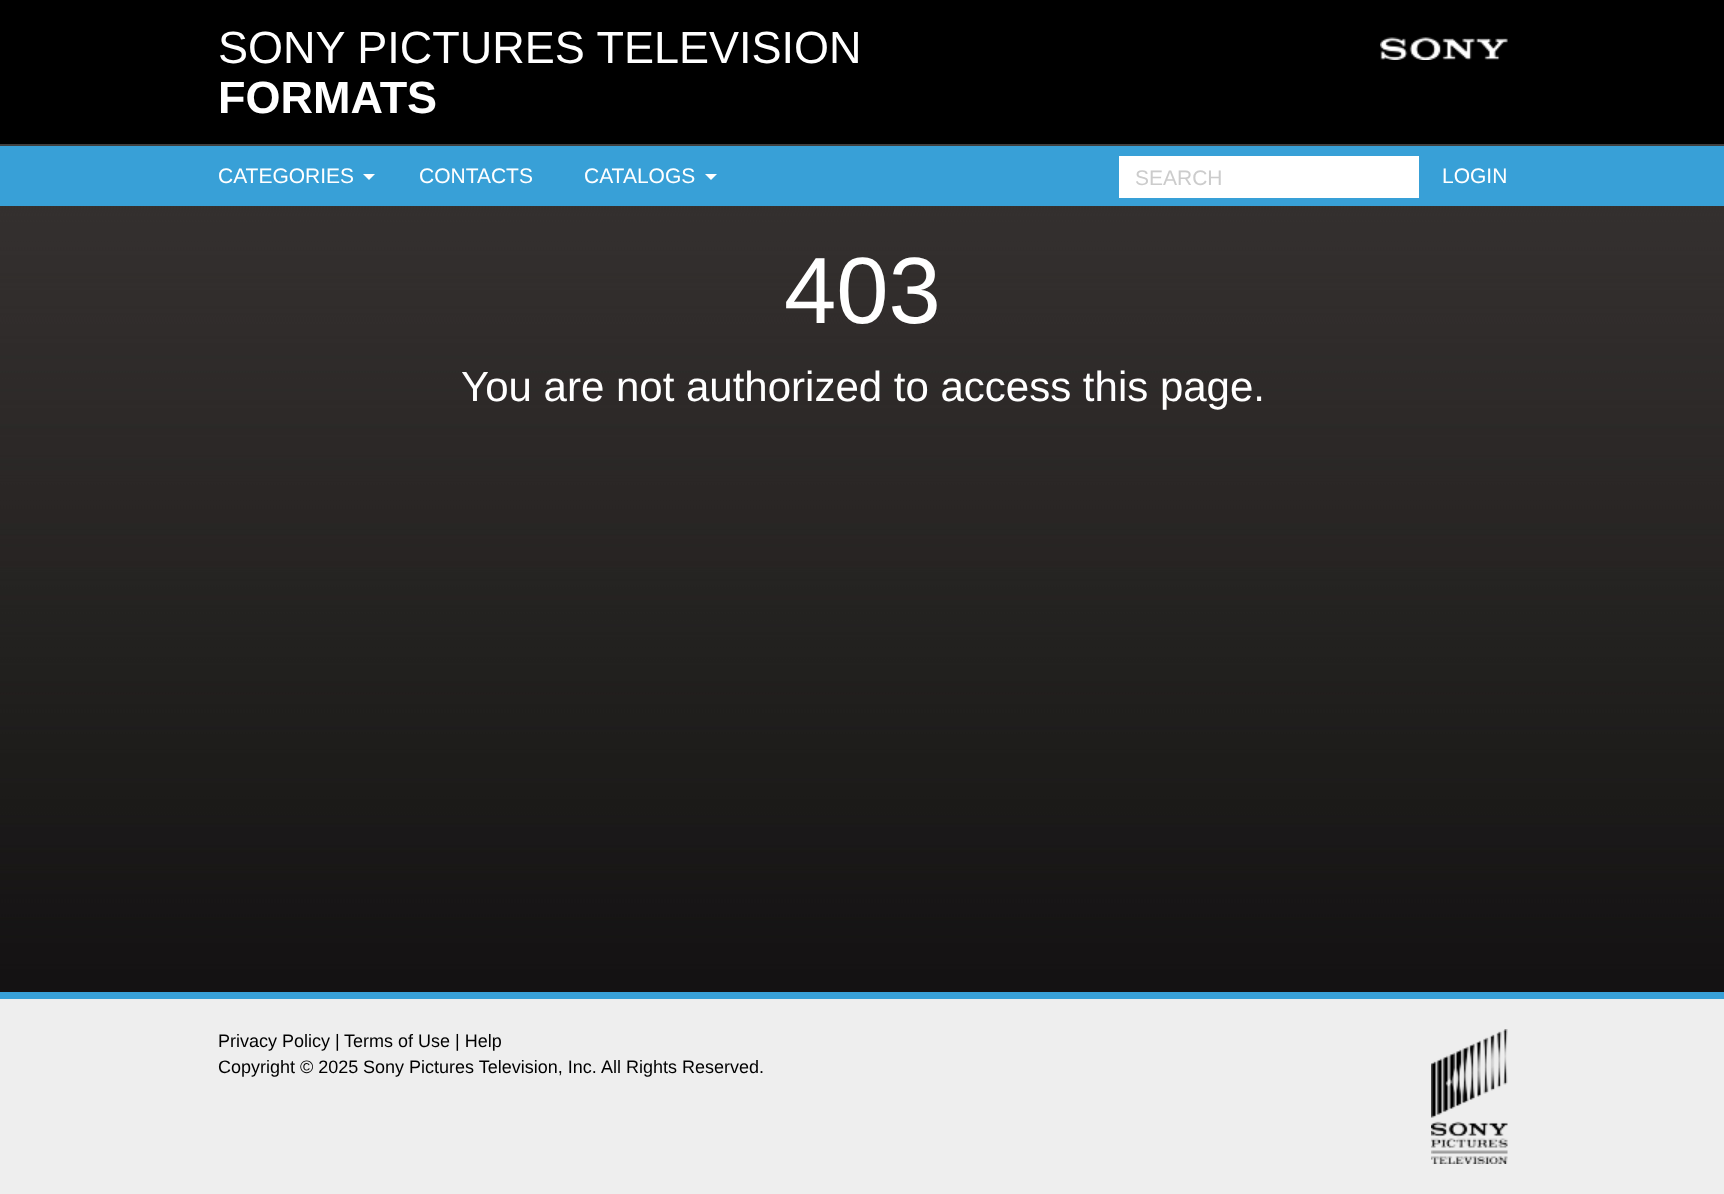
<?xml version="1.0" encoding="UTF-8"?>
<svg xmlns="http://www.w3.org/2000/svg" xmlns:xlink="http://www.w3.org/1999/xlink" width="1724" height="1194">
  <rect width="100%" height="100%" fill="#ffffff" />
  <image x="0" y="206" width="1724" height="786" xlink:href="image1.png" />
  <rect width="1724" height="144" fill="#000000" />
  <rect y="144" width="1724" height="2" fill="#404040" />
  <image x="1380" y="37" width="128" height="23" xlink:href="image2.png" />
  <rect y="146" width="1724" height="60" fill="#38a0d7" />
  <path d="M 363 174 h 12 l -6 6 z" fill="#ffffff" />
  <path d="M 705 174 h 12 l -6 6 z" fill="#ffffff" />
  <rect x="1119" y="156" width="300" height="42" fill="#ffffff" />
  <rect y="992" width="1724" height="7" fill="#38a0d7" />
  <rect y="999" width="1724" height="195" fill="#eeeeee" />
  <image x="1431" y="1029" width="77" height="135" xlink:href="image3.png" />
  <text x="218" y="63" style="font-family: Liberation Sans; font-size: 45px; fill: #ffffff">SONY PICTURES TELEVISION</text>
  <text x="218" y="113" style="font-family: Liberation Sans; font-size: 45px; font-weight: bold; fill: #ffffff">FORMATS</text>
  <text x="218" y="183" style="font-family: Liberation Sans; font-size: 21px; fill: #ffffff">CATEGORIES</text>
  <text x="419" y="183" style="font-family: Liberation Sans; font-size: 21px; fill: #ffffff">CONTACTS</text>
  <text x="584" y="183" style="font-family: Liberation Sans; font-size: 21px; fill: #ffffff">CATALOGS</text>
  <text x="1135" y="185" style="font-family: Liberation Sans; font-size: 21px; fill: #cccccc">SEARCH</text>
  <text x="1442" y="183" style="font-family: Liberation Sans; font-size: 21px; fill: #ffffff">LOGIN</text>
  <text x="784" y="323" style="font-family: Liberation Sans; font-size: 94px; fill: #ffffff">403</text>
  <text x="461" y="401" style="font-family: Liberation Sans; font-size: 42px; fill: #ffffff">You are not authorized to access this page.</text>
  <text x="218" y="1047" style="font-family: Liberation Sans; font-size: 18px; fill: #000000">Privacy Policy |</text>
  <text x="344" y="1047" style="font-family: Liberation Sans; font-size: 18px; fill: #000000">Terms of Use | Help</text>
  <text x="218" y="1073" style="font-family: Liberation Sans; font-size: 18px; fill: #000000">Copyright © 2025</text>
  <text x="363" y="1073" style="font-family: Liberation Sans; font-size: 18px; fill: #000000">Sony Pictures Television, Inc.</text>
  <text x="601" y="1073" style="font-family: Liberation Sans; font-size: 18px; fill: #000000">All Rights Reserved.</text>
</svg>
